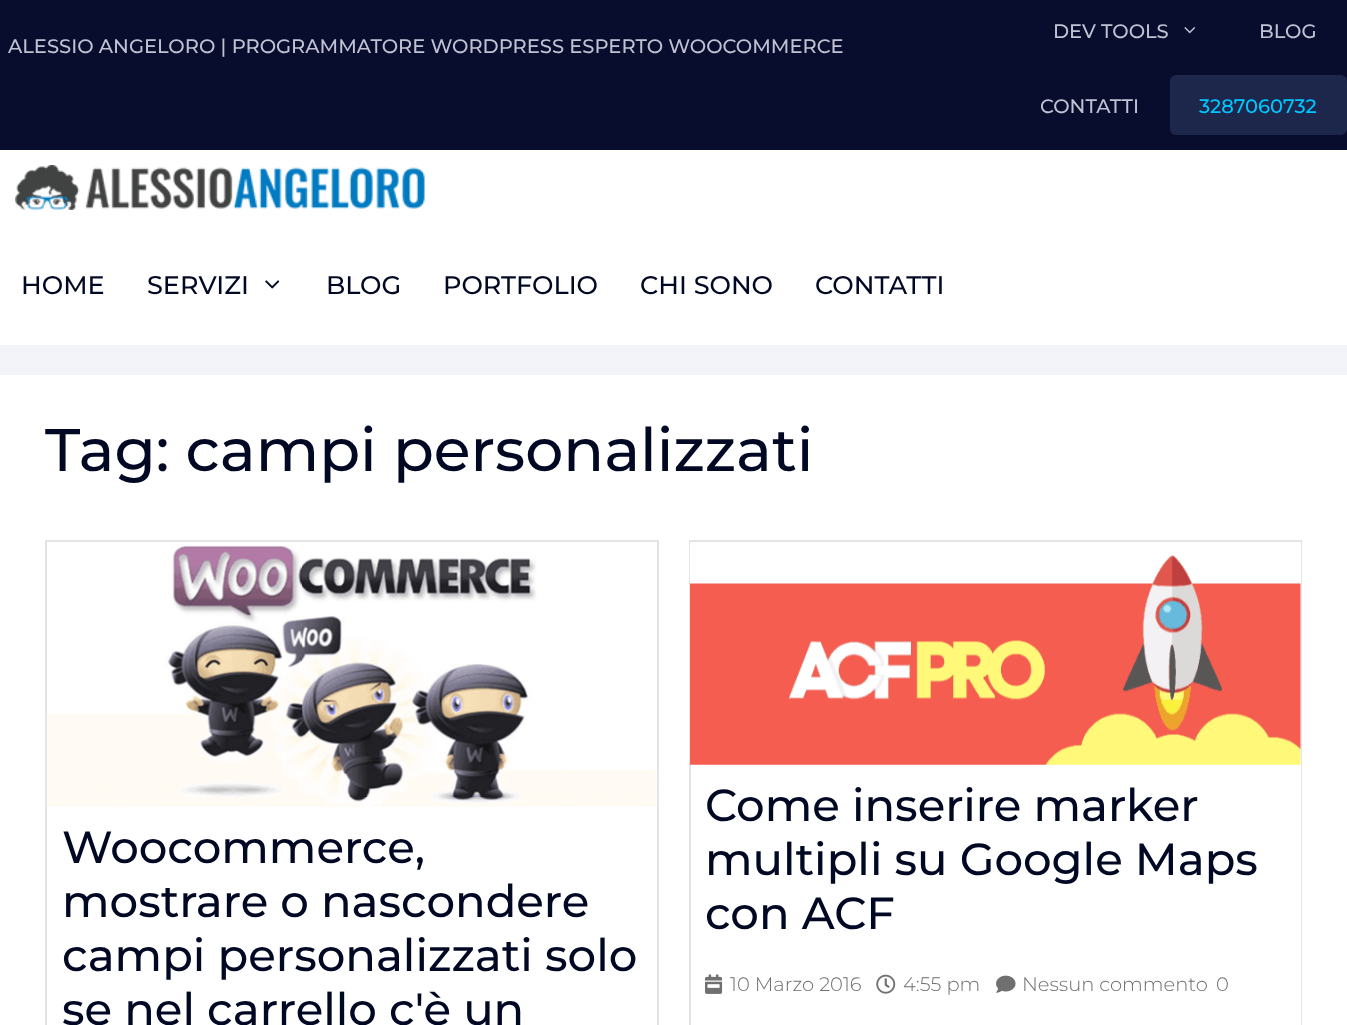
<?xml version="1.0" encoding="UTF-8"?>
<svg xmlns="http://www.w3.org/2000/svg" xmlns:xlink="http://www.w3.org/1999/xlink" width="1347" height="1025">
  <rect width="100%" height="100%" fill="#f3f4f9" />
  <rect width="1347" height="150" fill="#080c2d" />
  <image x="1184" y="27" width="12" height="7" xlink:href="image1.png" />
  <rect x="1170" y="75" width="177" height="60" rx="6" fill="#1d274c" />
  <rect y="150" width="1347" height="195" fill="#ffffff" />
  <image x="15" y="165" width="410" height="45" xlink:href="image2.png" />
  <image x="265" y="280" width="15" height="9" xlink:href="image3.png" />
  <rect y="375" width="1347" height="650" fill="#ffffff" />
  <rect x="45" y="540" width="614" height="2" fill="#e4e4e4" />
  <rect x="657" y="540" width="2" height="267" fill="#e4e4e4" />
  <rect x="45" y="540" width="2" height="267" fill="#e4e4e4" />
  <image x="47" y="545" width="610" height="262" xlink:href="image4.png" />
  <rect x="657" y="807" width="2" height="218" fill="#e4e4e4" />
  <rect x="45" y="807" width="2" height="218" fill="#e4e4e4" />
  <rect x="689" y="540" width="613" height="2" fill="#e4e4e4" />
  <rect x="1301" y="540" width="1" height="225" fill="#e4e4e4" />
  <rect x="689" y="540" width="2" height="225" fill="#e4e4e4" />
  <image x="690" y="542" width="611" height="223" xlink:href="image5.png" />
  <rect x="1301" y="765" width="1" height="260" fill="#e4e4e4" />
  <rect x="689" y="765" width="2" height="260" fill="#e4e4e4" />
  <image x="705" y="974" width="18" height="20" xlink:href="image6.png" />
  <image x="876" y="974" width="20" height="20" xlink:href="image7.png" />
  <image x="996" y="975" width="20" height="18" xlink:href="image8.png" />
  <text x="8" y="53" style="font-family: Montserrat; font-size: 19.5px; font-weight: 500; fill: #c0c2d3">ALESSIO ANGELORO | PROGRAMMATORE WORDPRESS ESPERTO WOOCOMMERCE</text>
  <text x="1053" y="38" style="font-family: Montserrat; font-size: 19.5px; font-weight: 500; fill: #c0c2d3">DEV TOOLS</text>
  <text x="1259" y="38" style="font-family: Montserrat; font-size: 19.5px; font-weight: 500; fill: #c0c2d3">BLOG</text>
  <text x="1040" y="113" style="font-family: Montserrat; font-size: 19.5px; font-weight: 500; fill: #c0c2d3">CONTATTI</text>
  <text x="1199" y="113" style="font-family: Montserrat; font-size: 19.5px; font-weight: 500; fill: #00c6ff">3287060732</text>
  <text x="21" y="294" style="font-family: Montserrat; font-size: 25.5px; font-weight: 500; fill: #000824">HOME</text>
  <text x="147" y="294" style="font-family: Montserrat; font-size: 25.5px; font-weight: 500; fill: #000824">SERVIZI</text>
  <text x="326" y="294" style="font-family: Montserrat; font-size: 25.5px; font-weight: 500; fill: #000824">BLOG</text>
  <text x="443" y="294" style="font-family: Montserrat; font-size: 25.5px; font-weight: 500; fill: #000824">PORTFOLIO</text>
  <text x="640" y="294" style="font-family: Montserrat; font-size: 25.5px; font-weight: 500; fill: #000824">CHI SONO</text>
  <text x="815" y="294" style="font-family: Montserrat; font-size: 25.5px; font-weight: 500; fill: #000824">CONTATTI</text>
  <text x="45" y="471" style="font-family: Montserrat; font-size: 60px; font-weight: 500; fill: #000824">Tag: campi personalizzati</text>
  <text x="62" y="863" style="font-family: Montserrat; font-size: 45px; font-weight: 500; fill: #000824">Woocommerce,</text>
  <text x="62" y="917" style="font-family: Montserrat; font-size: 45px; font-weight: 500; fill: #000824">mostrare o nascondere</text>
  <text x="62" y="971" style="font-family: Montserrat; font-size: 45px; font-weight: 500; fill: #000824">campi personalizzati solo</text>
  <text x="62" y="1025" style="font-family: Montserrat; font-size: 45px; font-weight: 500; fill: #000824">se nel carrello c'è un</text>
  <text x="705" y="821" style="font-family: Montserrat; font-size: 45px; font-weight: 500; fill: #000824">Come inserire marker</text>
  <text x="705" y="875" style="font-family: Montserrat; font-size: 45px; font-weight: 500; fill: #000824">multipli su Google Maps</text>
  <text x="705" y="929" style="font-family: Montserrat; font-size: 45px; font-weight: 500; fill: #000824">con ACF</text>
  <text x="730" y="991" style="font-family: Montserrat; font-size: 19.5px; font-weight: 300; fill: #707070">10 Marzo 2016</text>
  <text x="903" y="991" style="font-family: Montserrat; font-size: 19.5px; font-weight: 300; fill: #707070">4:55 pm</text>
  <text x="1022" y="991" style="font-family: Montserrat; font-size: 19.5px; font-weight: 300; fill: #707070">Nessun commento</text>
  <text x="1216" y="991" style="font-family: Montserrat; font-size: 19.5px; font-weight: 300; fill: #707070">0</text>
</svg>
